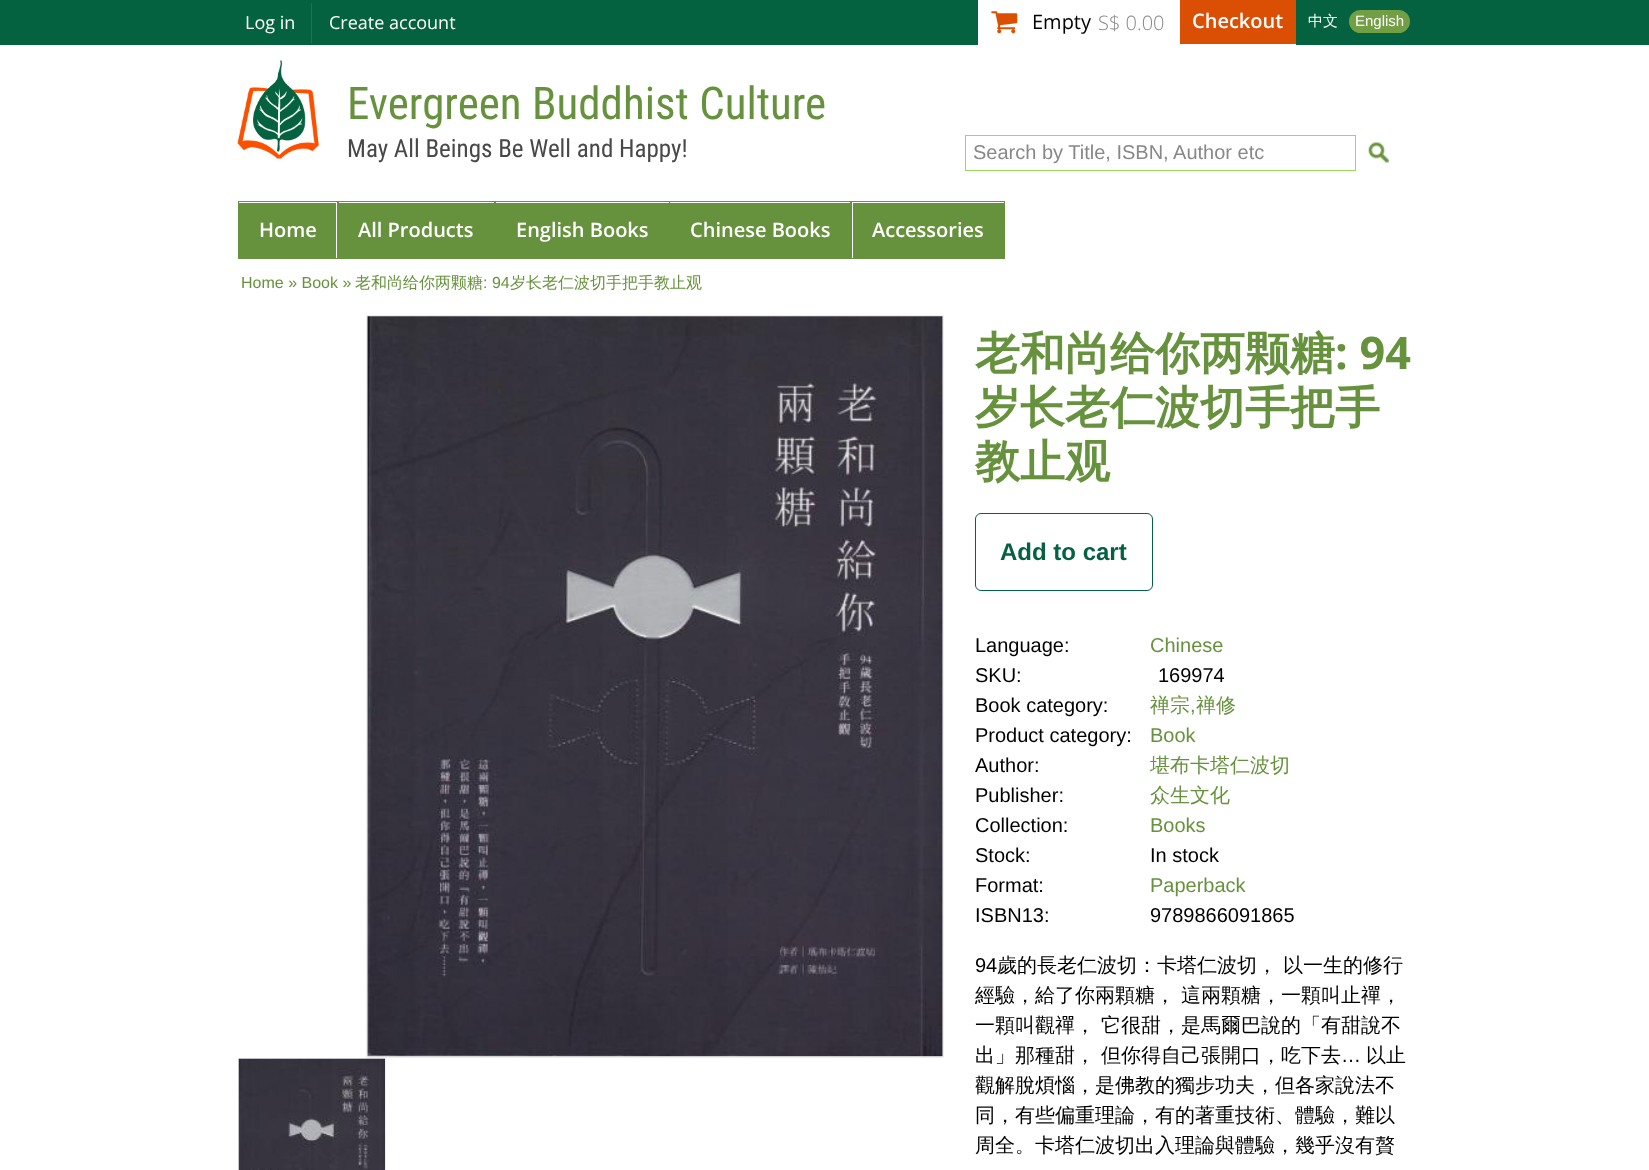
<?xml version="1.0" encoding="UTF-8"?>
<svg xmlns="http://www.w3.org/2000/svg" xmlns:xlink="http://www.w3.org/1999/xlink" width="1649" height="1170">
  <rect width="100%" height="100%" fill="#ffffff" />
  <rect width="1649" height="45" fill="#046240" />
  <rect x="311" y="3" width="1" height="40" fill="#187654" />
  <rect x="978" width="318" height="45" fill="#ffffff" />
  <image x="991" y="11" width="27" height="23" xlink:href="image1.png" />
  <rect x="1180" width="116" height="44" fill="#db4f04" />
  <rect x="1349" y="10" width="61" height="23" rx="11.5" fill="#729f44" />
  <image x="237" y="60" width="82" height="99" xlink:href="image2.png" />
  <rect x="965.5" y="135.5" width="390" height="35" fill="none" stroke="#99da58" />
  <image x="1368" y="142" width="21" height="21" xlink:href="image3.png" />
  <rect x="238.5" y="201.5" width="99" height="57" fill="none" stroke="#67923d" />
  <rect x="239" y="203" width="97" height="55" fill="#67923d" />
  <rect x="338.5" y="201.5" width="156" height="57" fill="none" stroke="#67923d" />
  <rect x="339" y="203" width="155" height="55" fill="#67923d" />
  <rect x="495.5" y="201.5" width="174" height="57" fill="none" stroke="#67923d" />
  <rect x="496" y="203" width="173" height="55" fill="#67923d" />
  <rect x="669.5" y="201.5" width="181" height="57" fill="none" stroke="#67923d" />
  <rect x="670" y="203" width="180" height="55" fill="#67923d" />
  <rect x="851.5" y="201.5" width="153" height="57" fill="none" stroke="#67923d" />
  <rect x="853" y="203" width="151" height="55" fill="#67923d" />
  <rect x="366.5" y="315.5" width="577" height="742" fill="none" stroke="#eeeeee" />
  <image x="367" y="316" width="576" height="741" xlink:href="image4.png" />
  <rect x="238.5" y="1058.5" width="147" height="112" fill="none" stroke="#eeeeee" />
  <image x="238" y="1058" width="147" height="112" xlink:href="image5.png" />
  <rect x="975.5" y="513.5" width="177" height="77" rx="5.5" fill="none" stroke="#046240" />
  <text x="245" y="29" style="font-family: Open Sans; font-size: 18px; fill: #ffffff">Log in</text>
  <text x="329" y="29" style="font-family: Open Sans; font-size: 18px; fill: #ffffff">Create account</text>
  <text x="1032" y="29" style="font-family: Open Sans; font-size: 20px; fill: #000000">Empty</text>
  <text x="1098" y="30" style="font-family: Open Sans; font-size: 20px; font-weight: 300; fill: #888888">S$ 0.00</text>
  <text x="1192" y="28" style="font-family: Open Sans; font-size: 20px; font-weight: 600; fill: #ffffff">Checkout</text>
  <text x="1308" y="26" style="font-family: WenQuanYi Zen Hei; font-size: 15px; font-weight: 500; fill: #ffffff">中文</text>
  <text x="1355" y="26" style="font-family: Liberation Sans; font-size: 15px; fill: #ffffff">English</text>
  <text x="347" y="119" style="font-family: Roboto Condensed; font-size: 45px; fill: #67923d">Evergreen Buddhist Culture</text>
  <text x="347" y="157" style="font-family: Roboto Condensed; font-size: 25px; fill: #484848">May All Beings Be Well and Happy!</text>
  <text x="973" y="159" style="font-family: Liberation Sans; font-size: 20px; fill: #888888">Search by Title, ISBN, Author etc</text>
  <text x="259" y="237" style="font-family: Open Sans; font-size: 20px; font-weight: 600; fill: #ffffff">Home</text>
  <text x="358" y="237" style="font-family: Open Sans; font-size: 20px; font-weight: 600; fill: #ffffff">All Products</text>
  <text x="516" y="237" style="font-family: Open Sans; font-size: 20px; font-weight: 600; fill: #ffffff">English Books</text>
  <text x="690" y="237" style="font-family: Open Sans; font-size: 20px; font-weight: 600; fill: #ffffff">Chinese Books</text>
  <text x="872" y="237" style="font-family: Open Sans; font-size: 20px; font-weight: 600; fill: #ffffff">Accessories</text>
  <text x="241" y="288" style="font-family: Liberation Sans; font-size: 16px; fill: #67923d">Home » Book »</text>
  <text x="355" y="288" style="font-family: WenQuanYi Zen Hei; font-size: 16px; font-weight: 500; fill: #67923d">老和尚给你两颗糖</text>
  <text x="483" y="288" style="font-family: Liberation Sans; font-size: 16px; fill: #67923d">: 94</text>
  <text x="510" y="288" style="font-family: WenQuanYi Zen Hei; font-size: 16px; font-weight: 500; fill: #67923d">岁长老仁波切手把手教止观</text>
  <text x="975" y="369" style="font-family: WenQuanYi Zen Hei; font-size: 45px; font-weight: bold; fill: #67923d">老和尚给你两颗糖</text>
  <text x="1335" y="369" style="font-family: Open Sans; font-size: 45px; font-weight: bold; fill: #67923d">: 94</text>
  <text x="975" y="423" style="font-family: WenQuanYi Zen Hei; font-size: 45px; font-weight: bold; fill: #67923d">岁长老仁波切手把手</text>
  <text x="975" y="477" style="font-family: WenQuanYi Zen Hei; font-size: 45px; font-weight: bold; fill: #67923d">教止观</text>
  <text x="1000" y="560" style="font-family: Liberation Sans; font-size: 24px; font-weight: bold; fill: #046240">Add to cart</text>
  <text x="975" y="652" style="font-family: Liberation Sans; font-size: 20px; fill: #000000">Language:</text>
  <text x="1150" y="652" style="font-family: Liberation Sans; font-size: 20px; fill: #67923d">Chinese</text>
  <text x="975" y="682" style="font-family: Liberation Sans; font-size: 20px; fill: #000000">SKU:</text>
  <text x="1158" y="682" style="font-family: Liberation Sans; font-size: 20px; fill: #000000">169974</text>
  <text x="975" y="712" style="font-family: Liberation Sans; font-size: 20px; fill: #000000">Book category:</text>
  <text x="1150" y="712" style="font-family: WenQuanYi Zen Hei; font-size: 20px; font-weight: 500; fill: #67923d">禅宗</text>
  <text x="1190" y="712" style="font-family: Liberation Sans; font-size: 20px; fill: #67923d">,</text>
  <text x="1196" y="712" style="font-family: WenQuanYi Zen Hei; font-size: 20px; font-weight: 500; fill: #67923d">禅修</text>
  <text x="975" y="742" style="font-family: Liberation Sans; font-size: 20px; fill: #000000">Product category:</text>
  <text x="1150" y="742" style="font-family: Liberation Sans; font-size: 20px; fill: #67923d">Book</text>
  <text x="975" y="772" style="font-family: Liberation Sans; font-size: 20px; fill: #000000">Author:</text>
  <text x="1150" y="772" style="font-family: WenQuanYi Zen Hei; font-size: 20px; font-weight: 500; fill: #67923d">堪布卡塔仁波切</text>
  <text x="975" y="802" style="font-family: Liberation Sans; font-size: 20px; fill: #000000">Publisher:</text>
  <text x="1150" y="802" style="font-family: WenQuanYi Zen Hei; font-size: 20px; font-weight: 500; fill: #67923d">众生文化</text>
  <text x="975" y="832" style="font-family: Liberation Sans; font-size: 20px; fill: #000000">Collection:</text>
  <text x="1150" y="832" style="font-family: Liberation Sans; font-size: 20px; fill: #67923d">Books</text>
  <text x="975" y="862" style="font-family: Liberation Sans; font-size: 20px; fill: #000000">Stock:</text>
  <text x="1150" y="862" style="font-family: Liberation Sans; font-size: 20px; fill: #000000">In stock</text>
  <text x="975" y="892" style="font-family: Liberation Sans; font-size: 20px; fill: #000000">Format:</text>
  <text x="1150" y="892" style="font-family: Liberation Sans; font-size: 20px; fill: #67923d">Paperback</text>
  <text x="975" y="922" style="font-family: Liberation Sans; font-size: 20px; fill: #000000">ISBN13:</text>
  <text x="1150" y="922" style="font-family: Liberation Sans; font-size: 20px; fill: #000000">9789866091865</text>
  <text x="975" y="972" style="font-family: Liberation Sans; font-size: 20px; fill: #000000">94</text>
  <text x="997" y="972" style="font-family: WenQuanYi Zen Hei; font-size: 20px; font-weight: 500; fill: #000000">歲的長老仁波切：卡塔仁波切， 以一生的修行</text>
  <text x="975" y="1002" style="font-family: WenQuanYi Zen Hei; font-size: 20px; font-weight: 500; fill: #000000">經驗，給了你兩顆糖， 這兩顆糖，一顆叫止禪，</text>
  <text x="975" y="1032" style="font-family: WenQuanYi Zen Hei; font-size: 20px; font-weight: 500; fill: #000000">一顆叫觀禪， 它很甜，是馬爾巴說的「有甜說不</text>
  <text x="975" y="1062" style="font-family: WenQuanYi Zen Hei; font-size: 20px; font-weight: 500; fill: #000000">出」那種甜， 但你得自己張開口，吃下去</text>
  <text x="1341" y="1062" style="font-family: Liberation Sans; font-size: 20px; fill: #000000">…</text>
  <text x="1366" y="1062" style="font-family: WenQuanYi Zen Hei; font-size: 20px; font-weight: 500; fill: #000000">以止</text>
  <text x="975" y="1092" style="font-family: WenQuanYi Zen Hei; font-size: 20px; font-weight: 500; fill: #000000">觀解脫煩惱，是佛教的獨步功夫，但各家說法不</text>
  <text x="975" y="1122" style="font-family: WenQuanYi Zen Hei; font-size: 20px; font-weight: 500; fill: #000000">同，有些偏重理論，有的著重技術、體驗，難以</text>
  <text x="975" y="1152" style="font-family: WenQuanYi Zen Hei; font-size: 20px; font-weight: 500; fill: #000000">周全。卡塔仁波切出入理論與體驗，幾乎沒有贅</text>
</svg>
